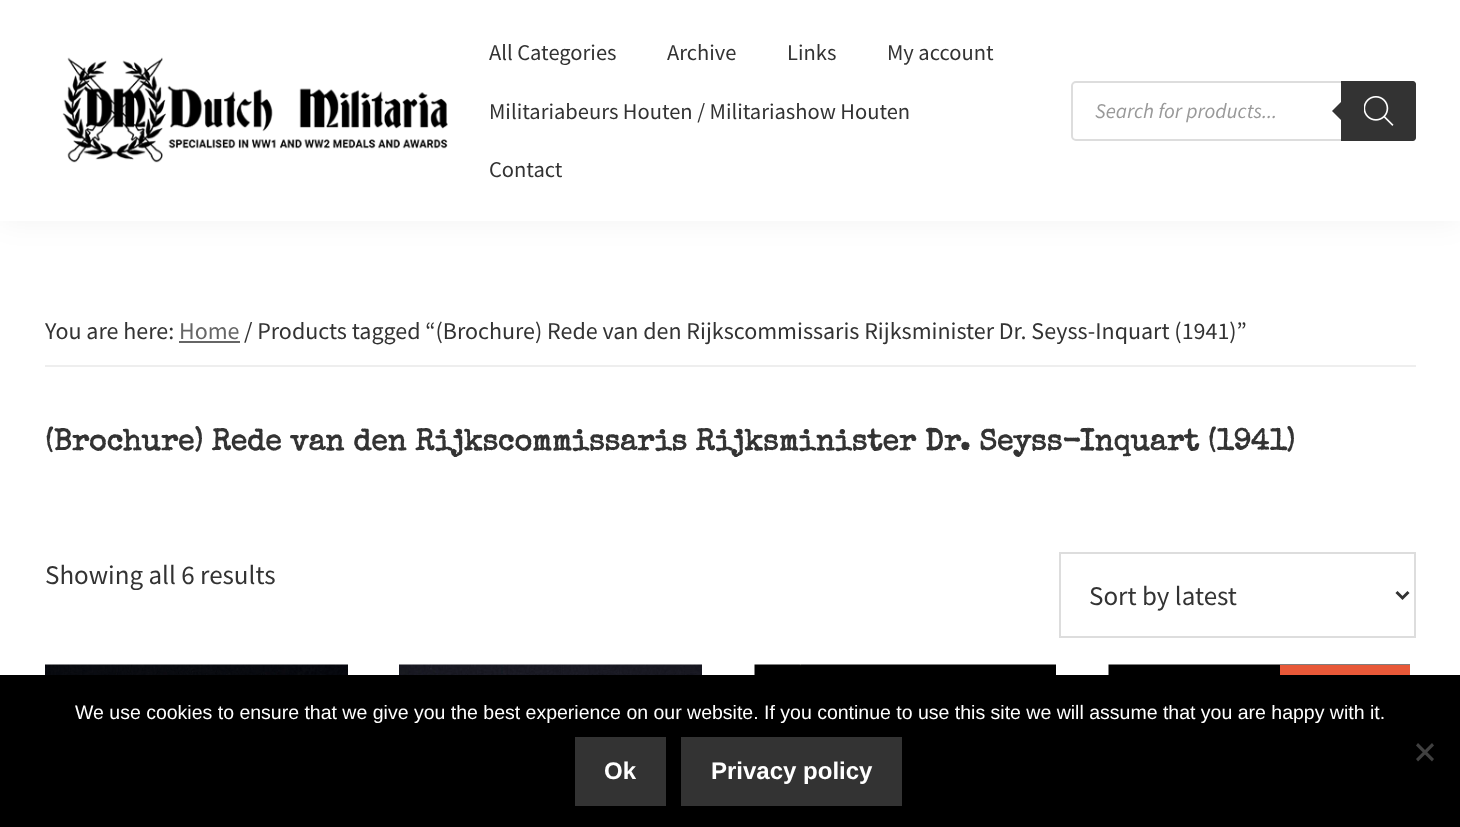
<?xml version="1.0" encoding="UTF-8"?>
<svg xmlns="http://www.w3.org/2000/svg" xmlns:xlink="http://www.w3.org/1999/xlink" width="1460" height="827">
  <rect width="100%" height="100%" fill="#ffffff" />
  <rect width="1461" height="221" fill="#000000" fill-opacity="0.05" filter="blur(15px)" />
  <rect width="1460" height="221" fill="#ffffff" />
  <image x="62" y="57" width="386" height="106" xlink:href="image1.png" />
  <rect x="1072" y="82" width="343" height="58" rx="4" fill="none" stroke="#dddddd" stroke-width="2" />
  <path d="M 1341 81 h 72 c 1.5 0 3 1.5 3 3 v 54 c 0 1.5 -1.5 3 -3 3 h -72 z" fill="#333333" />
  <path d="M 1344 99 v 24 l -12 -12 z" fill="#333333" />
  <image x="1364" y="96" width="30" height="30" xlink:href="image2.png" />
  <rect x="45" y="365" width="1371" height="2" fill="#eeeeee" />
  <rect x="179" y="341" width="61" height="2" fill="#666666" />
  <rect x="1060" y="553" width="355" height="84" fill="none" stroke="#dddddd" stroke-width="2" />
  <path d="M 1396.5 592 l 6 6 l 6 -6" fill="none" stroke="#333333" stroke-width="3" />
  <image x="45" y="664" width="303" height="11" xlink:href="image3.png" />
  <image x="399" y="664" width="303" height="11" xlink:href="image4.png" />
  <image x="754" y="664" width="302" height="11" xlink:href="image5.png" />
  <image x="1108" y="664" width="302" height="11" xlink:href="image6.png" />
  <rect x="1280" y="665" width="130" height="10" fill="#e85838" />
  <rect y="675" width="1460" height="152" fill="#000000" />
  <path d="M 1432 743 l 2 2.5 l -16 16 l -2 -2.5 z" fill="#404040" />
  <path d="M 1416 745.5 l 2 -2.5 l 16 16 l -2 2.5 z" fill="#404040" />
  <rect x="575" y="737" width="91" height="69" fill="#333333" />
  <rect x="681" y="737" width="221" height="69" fill="#333333" />
  <text x="489" y="60" style="font-family: Source Sans Pro; font-size: 22.5px; fill: #333333">All Categories</text>
  <text x="667" y="60" style="font-family: Source Sans Pro; font-size: 22.5px; fill: #333333">Archive</text>
  <text x="787" y="60" style="font-family: Source Sans Pro; font-size: 22.5px; fill: #333333">Links</text>
  <text x="887" y="60" style="font-family: Source Sans Pro; font-size: 22.5px; fill: #333333">My account</text>
  <text x="489" y="119" style="font-family: Source Sans Pro; font-size: 22.5px; fill: #333333">Militariabeurs Houten / Militariashow Houten</text>
  <text x="489" y="177" style="font-family: Source Sans Pro; font-size: 22.5px; fill: #333333">Contact</text>
  <text x="1095" y="118" style="font-family: Source Sans Pro; font-size: 21px; font-style: italic; fill: #999999">Search for products...</text>
  <text x="45" y="339" style="font-family: Source Sans Pro; font-size: 24px; fill: #333333">You are here:</text>
  <text x="179" y="339" style="font-family: Source Sans Pro; font-size: 24px; fill: #666666">Home</text>
  <text x="244" y="339" style="font-family: Source Sans Pro; font-size: 24px; fill: #333333">/ Products tagged “(Brochure) Rede van den Rijkscommissaris Rijksminister Dr. Seyss-Inquart (1941)”</text>
  <text x="45" y="450" style="font-family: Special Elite; font-size: 30px; font-weight: bold; fill: #333333">(Brochure) Rede van den Rijkscommissaris Rijksminister Dr. Seyss-Inquart (1941)</text>
  <text x="45" y="584" style="font-family: Source Sans Pro; font-size: 27px; fill: #333333">Showing all 6 results</text>
  <text x="1089" y="605" style="font-family: Source Sans Pro; font-size: 27px; fill: #333333">Sort by latest</text>
  <text x="75" y="719" style="font-family: Liberation Sans; font-size: 19.5px; fill: #ffffff">We use cookies to ensure that we give you the best experience on our website. If you continue to use this site we will assume that you are happy with it.</text>
  <text x="604" y="779" style="font-family: Liberation Sans; font-size: 24px; font-weight: bold; fill: #ffffff">Ok</text>
  <text x="711" y="779" style="font-family: Liberation Sans; font-size: 24px; font-weight: bold; fill: #ffffff">Privacy policy</text>
</svg>
